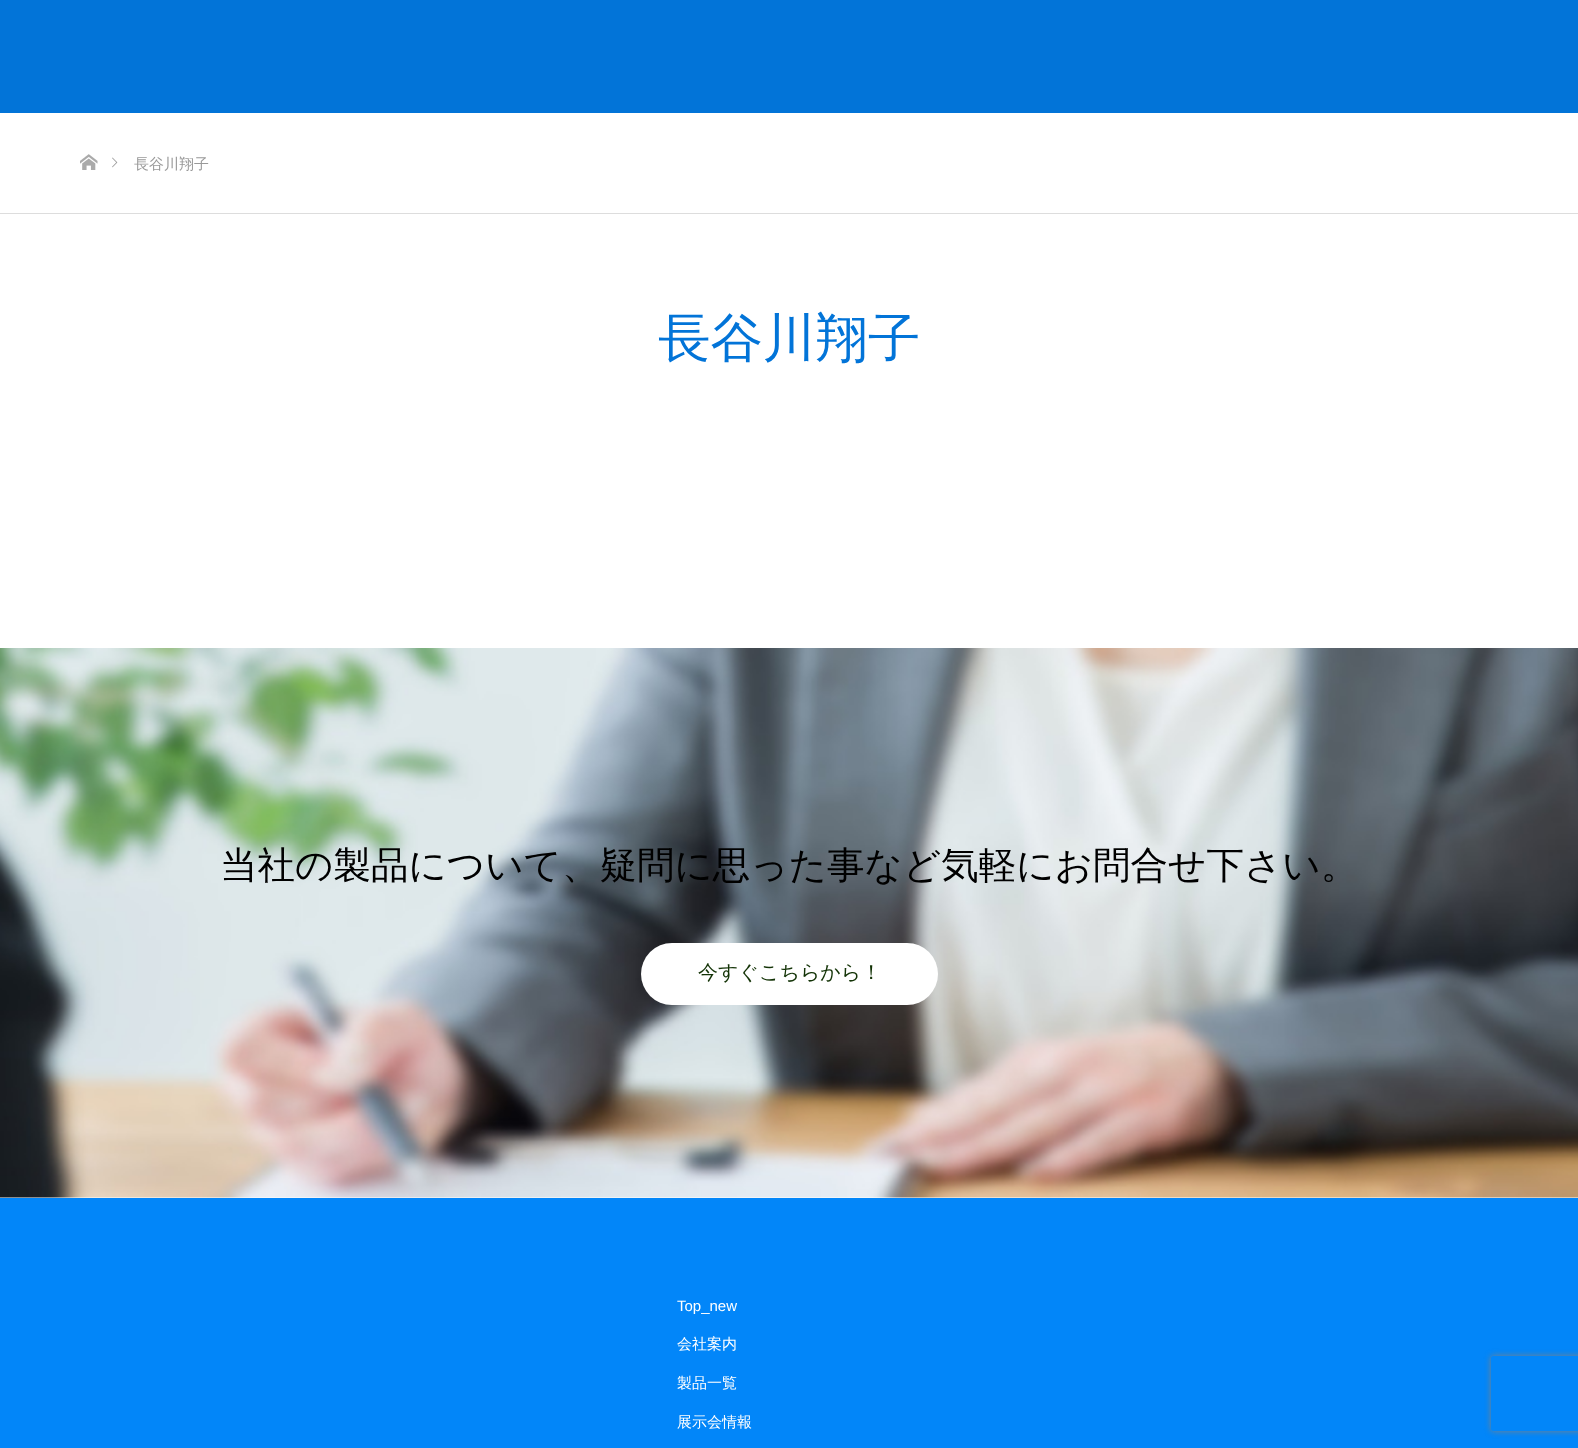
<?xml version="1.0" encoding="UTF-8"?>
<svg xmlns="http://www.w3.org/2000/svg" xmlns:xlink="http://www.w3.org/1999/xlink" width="1578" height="1448">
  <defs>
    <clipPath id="clip1"><path d="M 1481 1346 h 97 v 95 h -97 z m 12.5 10 h 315 c 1.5 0 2.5 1 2.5 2.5 v 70 c 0 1.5 -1 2.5 -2.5 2.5 h -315 c -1.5 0 -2.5 -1 -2.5 -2.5 v -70 c 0 -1.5 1 -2.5 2.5 -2.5 z" clip-rule="evenodd" /></clipPath>
  </defs>
  <rect width="100%" height="100%" fill="#ffffff" />
  <rect width="1578" height="113" fill="#0274d8" />
  <rect y="213" width="1578" height="1" fill="#dddddd" />
  <image x="80" y="154" width="18" height="16" xlink:href="image1.png" />
  <image x="112" y="157" width="6" height="11" xlink:href="image2.png" />
  <image x="0" y="648" width="1578" height="550" xlink:href="image3.png" />
  <rect x="641" y="943" width="297" height="62" rx="31" fill="#ffffff" />
  <rect y="1198" width="1578" height="250" fill="#0286f9" />
  <g clip-path="url(#clip1)">
    <rect x="1491" y="1356" width="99" height="75" rx="2.5" fill="#808080" filter="blur(3px)" />
  </g>
  <text x="134" y="169" style="font-family: WenQuanYi Zen Hei; font-size: 15px; font-weight: 500; fill: #999999">長谷川翔子</text>
  <text x="658" y="356" style="font-family: WenQuanYi Zen Hei; font-size: 52.5px; font-weight: 500; fill: #0274d8">長谷川翔子</text>
  <text x="220" y="878" style="font-family: WenQuanYi Zen Hei; font-size: 37.5px; font-weight: 500; fill: #000000">当社の製品について、疑問に思った事など気軽にお問合せ下さい。</text>
  <text x="698" y="979" style="font-family: WenQuanYi Zen Hei; font-size: 20px; font-weight: 500; fill: #133306">今すぐこちらから！</text>
  <text x="677" y="1311" style="font-family: Liberation Sans; font-size: 15px; fill: #ffffff">Top_new</text>
  <text x="677" y="1349" style="font-family: WenQuanYi Zen Hei; font-size: 15px; font-weight: 500; fill: #ffffff">会社案内</text>
  <text x="677" y="1388" style="font-family: WenQuanYi Zen Hei; font-size: 15px; font-weight: 500; fill: #ffffff">製品一覧</text>
  <text x="677" y="1427" style="font-family: WenQuanYi Zen Hei; font-size: 15px; font-weight: 500; fill: #ffffff">展示会情報</text>
</svg>
